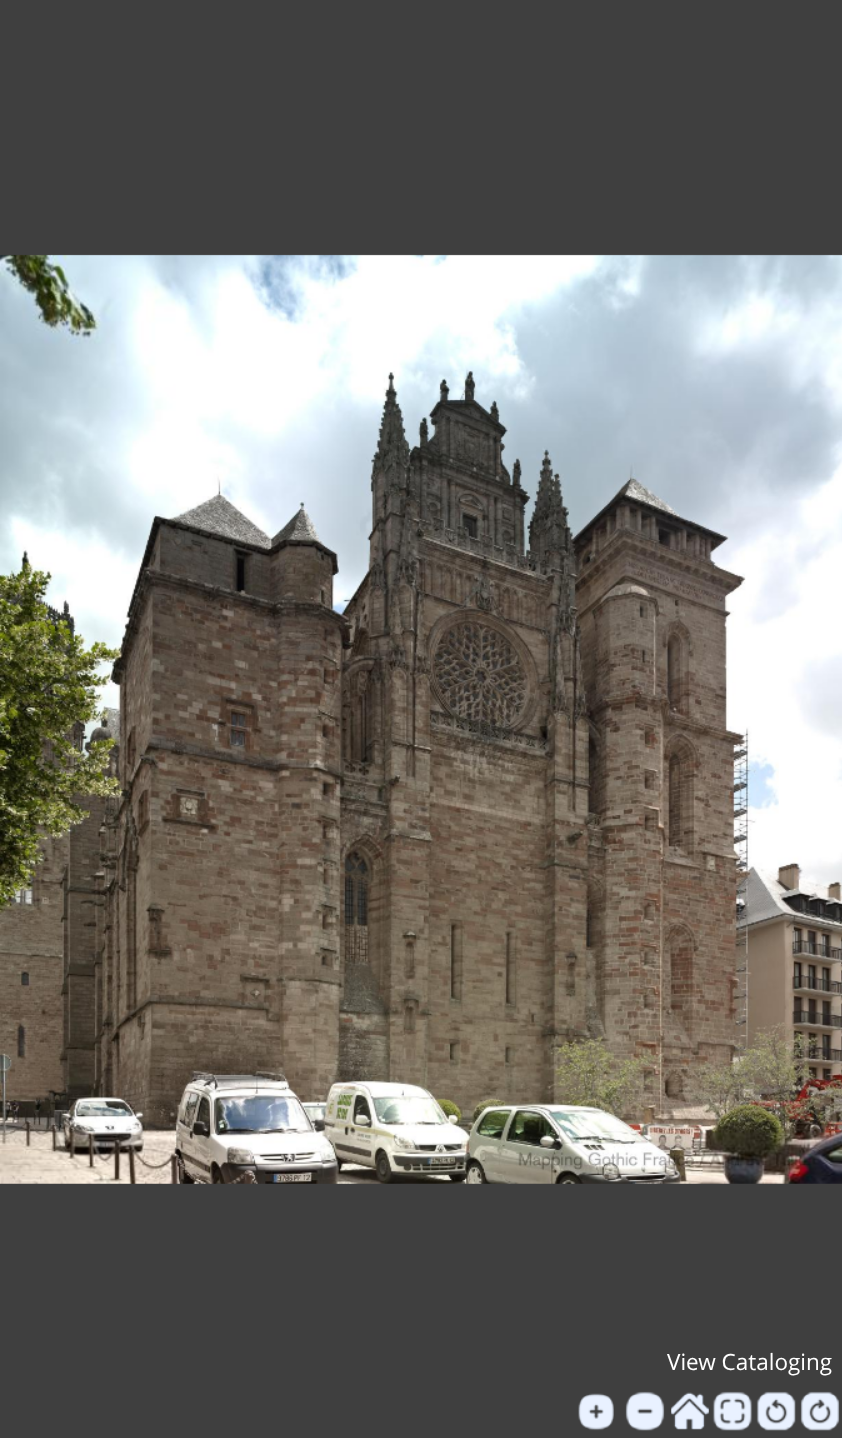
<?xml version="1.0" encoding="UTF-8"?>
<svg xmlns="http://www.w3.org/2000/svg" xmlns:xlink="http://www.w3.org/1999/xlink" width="842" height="1438">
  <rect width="100%" height="100%" fill="#3f3f3f" />
  <image x="0" y="254" width="842" height="930" xlink:href="image1.png" />
  <image x="578" y="1393" width="36" height="38" xlink:href="image2.png" />
  <image x="578" y="1393" width="36" height="37" xlink:href="image3.png" />
  <image x="625" y="1391" width="40" height="40" xlink:href="image4.png" />
  <image x="626" y="1392" width="38" height="39" xlink:href="image5.png" />
  <image x="671" y="1392" width="38" height="38" xlink:href="image6.png" />
  <image x="671" y="1392" width="38" height="38" xlink:href="image7.png" />
  <image x="712" y="1391" width="41" height="40" xlink:href="image8.png" />
  <image x="713" y="1392" width="39" height="39" xlink:href="image9.png" />
  <image x="756" y="1391" width="40" height="40" xlink:href="image10.png" />
  <image x="757" y="1392" width="39" height="39" xlink:href="image11.png" />
  <image x="800" y="1391" width="40" height="40" xlink:href="image12.png" />
  <image x="801" y="1392" width="38" height="39" xlink:href="image13.png" />
  <text x="667" y="1370" style="font-family: Open Sans; font-size: 22.5px; fill: #ffffff">View Cataloging</text>
</svg>
